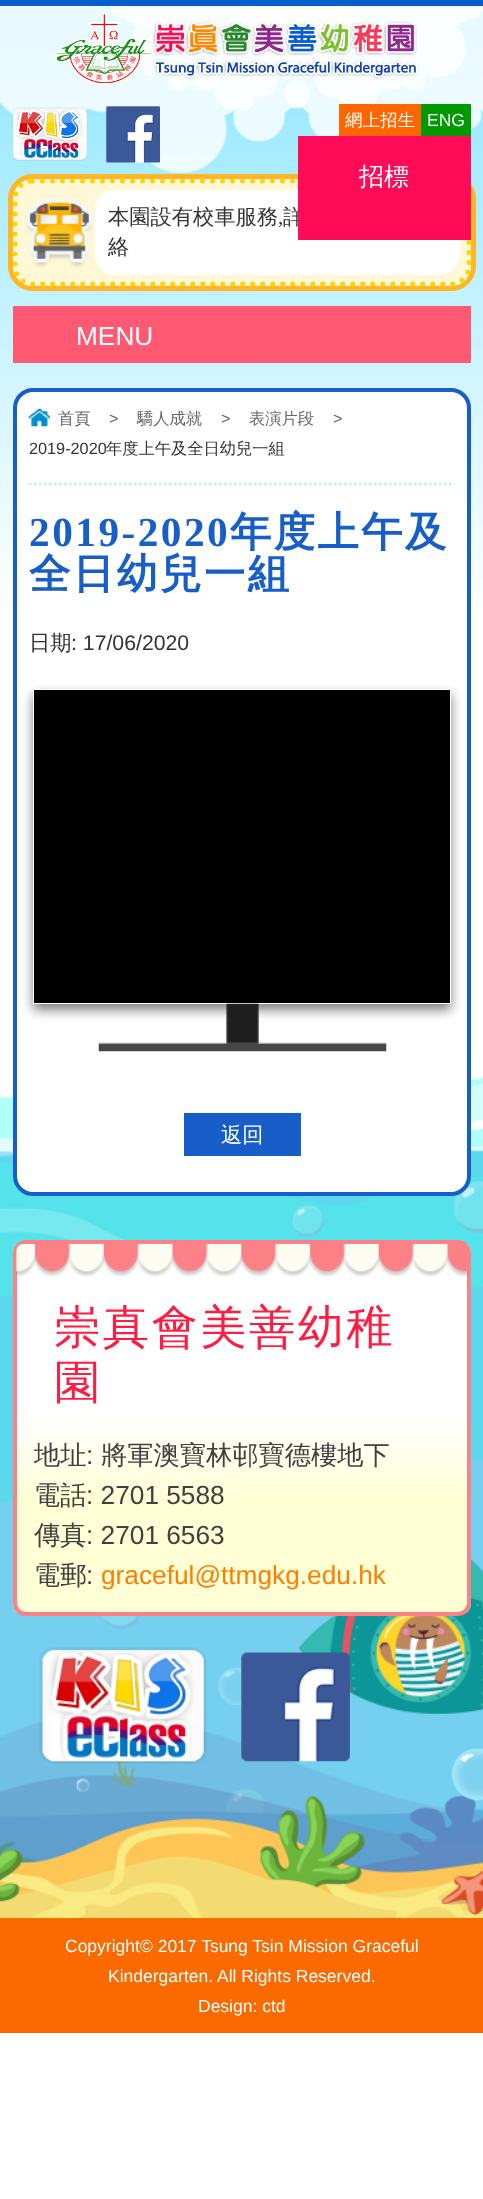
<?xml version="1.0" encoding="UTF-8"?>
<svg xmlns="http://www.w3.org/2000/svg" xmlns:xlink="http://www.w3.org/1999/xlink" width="483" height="2199">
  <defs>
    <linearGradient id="g1" gradientUnits="userSpaceOnUse" x1="242" y1="0" x2="242" y2="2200"><stop offset="0" stop-color="#8ae5ff" /><stop offset="0.28" stop-color="#ffffff" /></linearGradient>
    <clipPath id="clip1"><rect x="13" y="1240" width="458" height="376" rx="13" /></clipPath>
    <linearGradient id="g2" gradientUnits="userSpaceOnUse" x1="242" y1="1244" x2="242" y2="1613"><stop offset="0.47" stop-color="#ffffff" /><stop offset="0.69" stop-color="#ffffd6" /></linearGradient>
  </defs>
  <rect width="100%" height="100%" fill="#ffffff" />
  <rect y="6" width="483" height="597" fill="url(#g1)" />
  <image x="0" y="6" width="483" height="168" xlink:href="image1.png" />
  <image x="0" y="1077" width="483" height="841" xlink:href="image2.png" />
  <rect width="483" height="6" fill="#045ece" />
  <image x="55" y="12" width="364" height="73" xlink:href="image3.png" />
  <image x="12" y="107" width="76" height="54" xlink:href="image4.png" />
  <image x="106" y="106" width="54" height="57" xlink:href="image5.png" />
  <rect x="339" y="104" width="82" height="32" fill="#ff6600" />
  <rect x="421" y="104" width="50" height="32" fill="#009900" />
  <rect x="10.5" y="176.5" width="463" height="112" rx="22.5" fill="none" stroke="#ffb526" stroke-width="5" />
  <rect x="13" y="179" width="458" height="107" rx="20" fill="#fff8d7" />
  <path d="M 32.5 181 h 418.5 c 10 0 18 8 18 18 v 67 c 0 10 -8 18 -18 18 h -418.5 c -9.5 0 -17.5 -8 -17.5 -18 v -67 c 0 -10 8 -18 17.5 -18 z" fill="none" stroke="#ffd400" stroke-width="5" stroke-linecap="round" stroke-dasharray="0 10" />
  <image x="26" y="198" width="67" height="70" xlink:href="image6.png" />
  <rect x="95" y="190" width="365" height="85" rx="20" fill="#ffffff" />
  <rect x="13" y="306" width="458" height="57" fill="#ff5974" />
  <rect x="15" y="390" width="454" height="804" rx="18" fill="#ffffff" stroke="#185ec8" stroke-width="4" />
  <path d="M 29 484 h 426" fill="none" stroke="#baf1ea" stroke-width="2.5" stroke-dasharray="2.5 2.5" />
  <image x="28" y="408" width="22" height="19" xlink:href="image7.png" />
  <rect x="33" y="695" width="418" height="315" fill="#000000" fill-opacity="0.5" filter="blur(6px)" />
  <rect x="33.5" y="689.5" width="417" height="314" fill="#000000" stroke="#ffffff" />
  <image x="98" y="1003" width="289" height="49" xlink:href="image8.png" />
  <rect x="184" y="1113" width="117" height="43" fill="#185ec8" />
  <g clip-path="url(#clip1)">
    <rect x="13" y="1244" width="458" height="369" fill="url(#g2)" />
  </g>
  <rect x="15" y="1242" width="454" height="372" rx="11" fill="none" stroke="#fc8187" stroke-width="4" />
  <image x="16" y="1243" width="452" height="34" xlink:href="image9.png" />
  <image x="39" y="1647" width="168" height="117" xlink:href="image10.png" />
  <image x="241" y="1652" width="109" height="110" xlink:href="image11.png" />
  <rect y="1918" width="483" height="115" fill="#fa6a00" />
  <text x="345" y="126" style="font-family: WenQuanYi Zen Hei; font-size: 17.5px; font-weight: 500; fill: #ffffff">網上招生</text>
  <text x="427" y="126" style="font-family: Liberation Sans; font-size: 17.5px; fill: #ffffff">ENG</text>
  <text x="108" y="224" style="font-family: WenQuanYi Zen Hei; font-size: 21.25px; font-weight: 500; fill: #333333">本園設有校車服務</text>
  <text x="278" y="224" style="font-family: Liberation Serif; font-size: 21.25px; fill: #333333">,</text>
  <text x="283" y="224" style="font-family: WenQuanYi Zen Hei; font-size: 21.25px; font-weight: 500; fill: #333333">詳</text>
  <rect x="298" y="136" width="173" height="104" fill="#ff0b58" />
  <text x="359" y="185" style="font-family: WenQuanYi Zen Hei; font-size: 25px; font-weight: 500; fill: #ffffff">招標</text>
  <text x="108" y="254" style="font-family: WenQuanYi Zen Hei; font-size: 21.25px; font-weight: 500; fill: #333333">絡</text>
  <text x="76" y="345" style="font-family: Liberation Sans; font-size: 26.25px; fill: #ffffff">MENU</text>
  <text x="58" y="424" style="font-family: WenQuanYi Zen Hei; font-size: 16.25px; font-weight: 500; fill: #666666">首頁</text>
  <text x="109" y="424" style="font-family: Liberation Sans; font-size: 16.25px; fill: #666666">&gt;</text>
  <text x="137" y="424" style="font-family: WenQuanYi Zen Hei; font-size: 16.25px; font-weight: 500; fill: #666666">驕人成就</text>
  <text x="221" y="424" style="font-family: Liberation Sans; font-size: 16.25px; fill: #666666">&gt;</text>
  <text x="249" y="424" style="font-family: WenQuanYi Zen Hei; font-size: 16.25px; font-weight: 500; fill: #666666">表演片段</text>
  <text x="333" y="424" style="font-family: Liberation Sans; font-size: 16.25px; fill: #666666">&gt;</text>
  <text x="29" y="454" style="font-family: Liberation Sans; font-size: 16.25px; fill: #333333">2019-2020</text>
  <text x="106" y="454" style="font-family: WenQuanYi Zen Hei; font-size: 16.25px; font-weight: 500; fill: #333333">年度上午及全日幼兒一組</text>
  <text x="29" y="546" style="font-family: Liberation Serif; font-size: 41.25px; font-weight: bold; letter-spacing: 2.5px; fill: #185ec8">2019-2020</text>
  <text x="230" y="546" style="font-family: WenQuanYi Zen Hei; font-size: 41.25px; font-weight: bold; letter-spacing: 2.5px; fill: #185ec8">年度上午及</text>
  <text x="29" y="588" style="font-family: WenQuanYi Zen Hei; font-size: 41.25px; font-weight: bold; letter-spacing: 2.5px; fill: #185ec8">全日幼兒一組</text>
  <text x="29" y="650" style="font-family: WenQuanYi Zen Hei; font-size: 21.25px; font-weight: 500; fill: #333333">日期</text>
  <text x="71" y="650" style="font-family: Liberation Sans; font-size: 21.25px; fill: #333333">: 17/06/2020</text>
  <text x="221" y="1142" style="font-family: WenQuanYi Zen Hei; font-size: 21.25px; font-weight: 500; fill: #ffffff">返回</text>
  <text x="54" y="1343" style="font-family: WenQuanYi Zen Hei; font-size: 46.25px; font-weight: 500; letter-spacing: 2.5px; fill: #ff1b41">崇真會美善幼稚</text>
  <text x="54" y="1398" style="font-family: WenQuanYi Zen Hei; font-size: 46.25px; font-weight: 500; letter-spacing: 2.5px; fill: #ff1b41">園</text>
  <text x="34" y="1464" style="font-family: WenQuanYi Zen Hei; font-size: 26.25px; font-weight: 500; fill: #404040">地址</text>
  <text x="86" y="1464" style="font-family: Liberation Sans; font-size: 26.25px; fill: #404040">:</text>
  <text x="101" y="1464" style="font-family: WenQuanYi Zen Hei; font-size: 26.25px; font-weight: 500; fill: #404040">將軍澳寶林邨寶德樓地下</text>
  <text x="34" y="1504" style="font-family: WenQuanYi Zen Hei; font-size: 26.25px; font-weight: 500; fill: #404040">電話</text>
  <text x="86" y="1504" style="font-family: Liberation Sans; font-size: 26.25px; fill: #404040">: 2701 5588</text>
  <text x="34" y="1544" style="font-family: WenQuanYi Zen Hei; font-size: 26.25px; font-weight: 500; fill: #404040">傳真</text>
  <text x="86" y="1544" style="font-family: Liberation Sans; font-size: 26.25px; fill: #404040">: 2701 6563</text>
  <text x="34" y="1584" style="font-family: WenQuanYi Zen Hei; font-size: 26.25px; font-weight: 500; fill: #404040">電郵</text>
  <text x="86" y="1584" style="font-family: Liberation Sans; font-size: 26.25px; fill: #404040">:</text>
  <text x="101" y="1584" style="font-family: Liberation Sans; font-size: 26.25px; fill: #ff7e00">graceful@ttmgkg.edu.hk</text>
  <text x="65" y="1952" style="font-family: Liberation Sans; font-size: 17.5px; fill: #ffffff">Copyright© 2017 Tsung Tsin Mission Graceful</text>
  <text x="108" y="1982" style="font-family: Liberation Sans; font-size: 17.5px; fill: #ffffff">Kindergarten. All Rights Reserved.</text>
  <text x="198" y="2012" style="font-family: Liberation Sans; font-size: 17.5px; fill: #ffffff">Design: ctd</text>
</svg>
